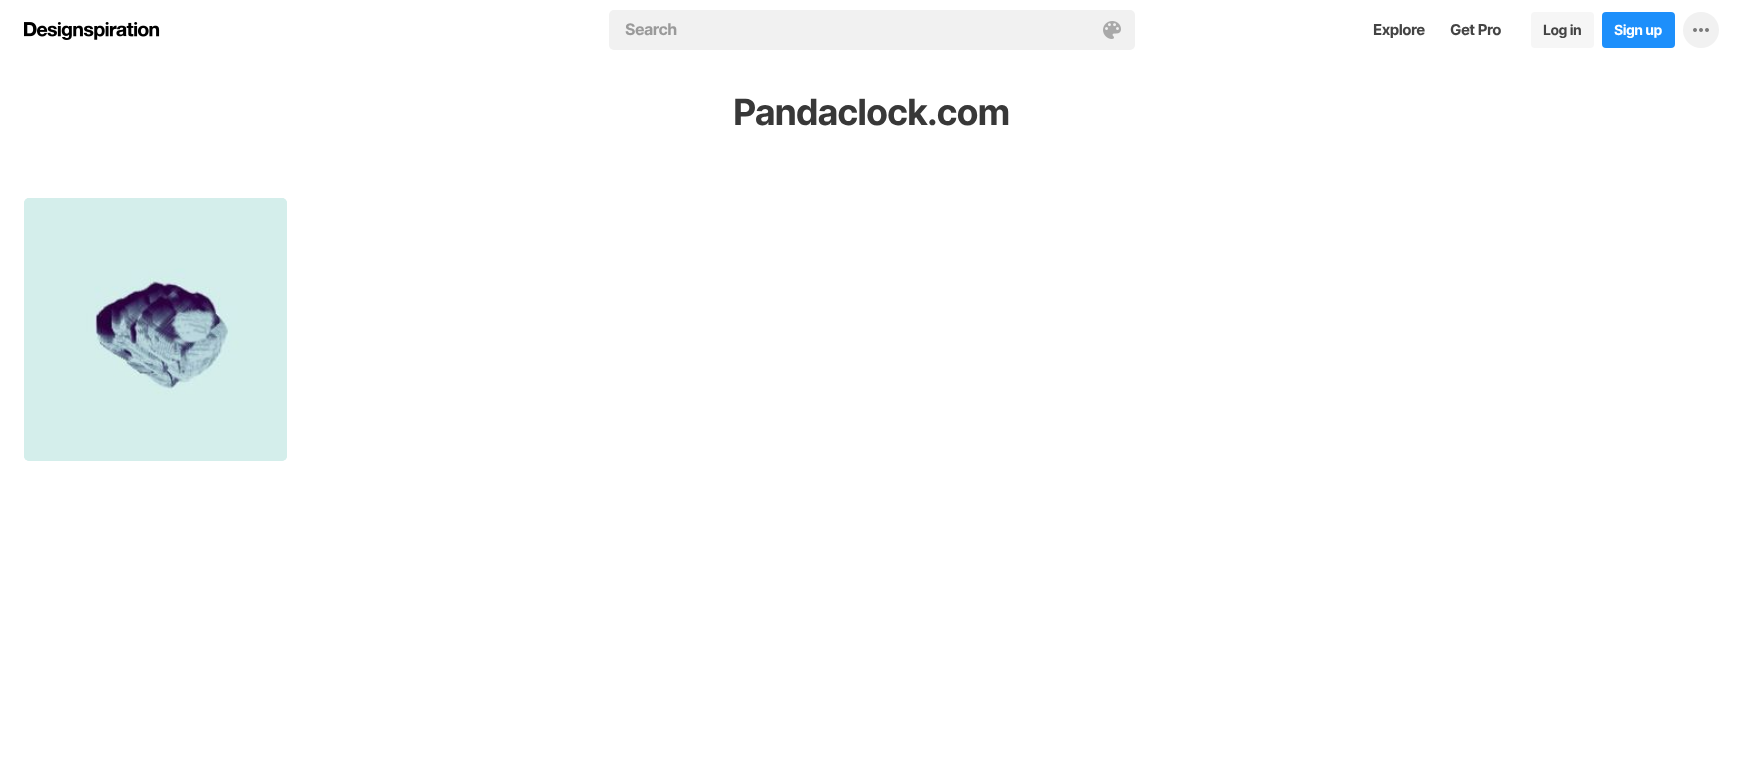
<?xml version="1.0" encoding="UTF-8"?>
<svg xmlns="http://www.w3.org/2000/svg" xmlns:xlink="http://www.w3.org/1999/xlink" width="1743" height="779">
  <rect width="100%" height="100%" fill="#ffffff" />
  <image x="24" y="22" width="136" height="18" xlink:href="image1.png" />
  <rect x="609" y="10" width="526" height="40" rx="5" fill="#f1f1f1" />
  <image x="1103" y="21" width="18" height="18" xlink:href="image2.png" />
  <rect x="1531" y="12" width="63" height="36" rx="4" fill="#f6f6f6" />
  <rect x="1602" y="12" width="73" height="36" rx="4" fill="#1d8ffb" />
  <circle cx="1701" cy="30" r="18" fill="#f1f1f1" />
  <image x="1693" y="28" width="16" height="4" xlink:href="image3.png" />
  <rect x="24" y="198" width="263" height="263" rx="5" fill="#d4eeeb" />
  <image x="24" y="198" width="263" height="263" xlink:href="image4.png" />
  <text x="625" y="35" style="font-family: Inter; font-size: 16px; font-weight: bold; letter-spacing: -0.5px; fill: #9a9a9a">Search</text>
  <text x="1373" y="35" style="font-family: Inter; font-size: 15px; font-weight: bold; letter-spacing: -0.5px; fill: #444444">Explore</text>
  <text x="1450" y="35" style="font-family: Inter; font-size: 15px; font-weight: bold; letter-spacing: -0.5px; fill: #444444">Get Pro</text>
  <text x="1543" y="35" style="font-family: Inter; font-size: 14px; font-weight: bold; letter-spacing: -0.5px; fill: #444444">Log in</text>
  <text x="1614" y="35" style="font-family: Inter; font-size: 14px; font-weight: bold; letter-spacing: -0.5px; fill: #ffffff">Sign up</text>
  <text x="733" y="125" style="font-family: Inter; font-size: 36px; font-weight: bold; letter-spacing: -1.1px; fill: #383838">Pandaclock.com</text>
</svg>
